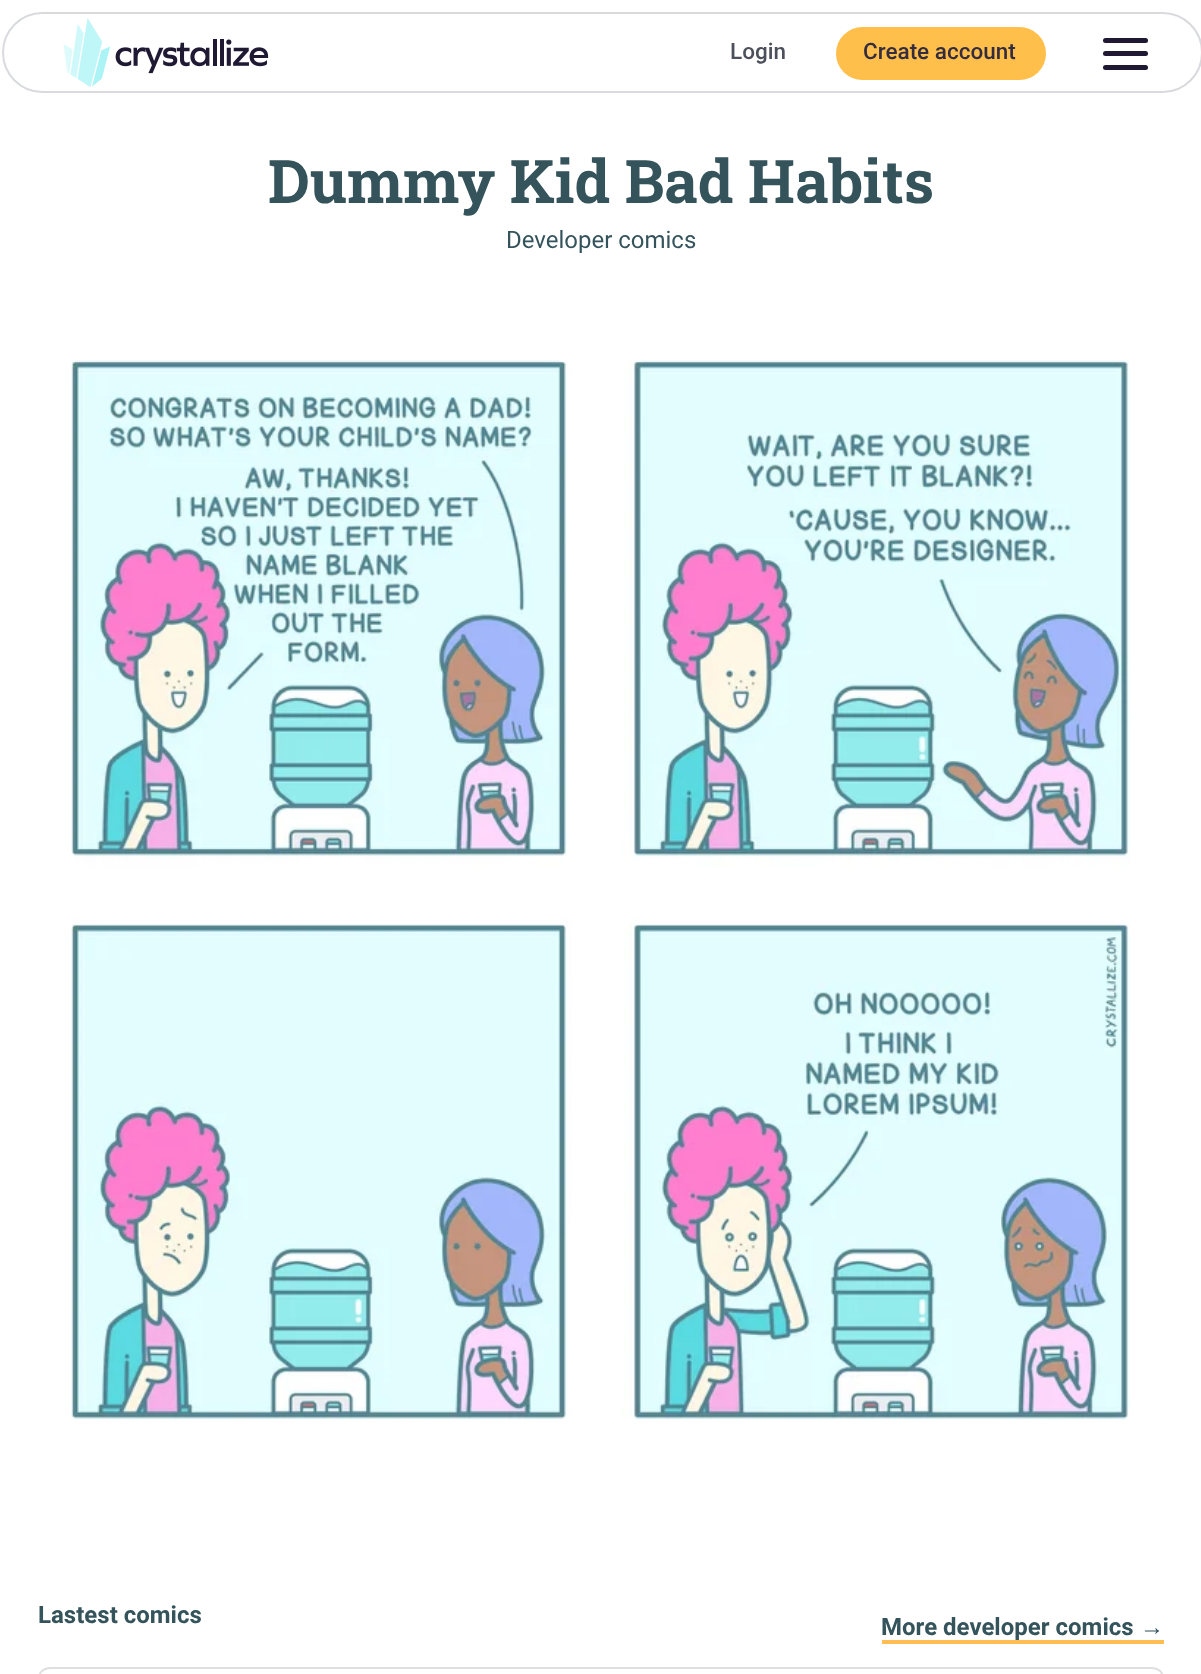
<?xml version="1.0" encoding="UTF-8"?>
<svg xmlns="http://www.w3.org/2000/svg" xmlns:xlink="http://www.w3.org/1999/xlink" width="1201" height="1674">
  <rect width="100%" height="100%" fill="#ffffff" />
  <rect x="3" y="13" width="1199" height="79" rx="39.5" fill="none" stroke="#d9dade" stroke-width="2" />
  <image x="63" y="18" width="206" height="69" xlink:href="image1.png" />
  <rect x="836" y="27" width="210" height="53" rx="26.5" fill="#ffbf4a" />
  <rect x="1103" y="38" width="45" height="5" rx="2.5" fill="#1f1934" />
  <rect x="1103" y="51" width="45" height="5" rx="2.5" fill="#1f1934" />
  <rect x="1103" y="65" width="45" height="5" rx="2.5" fill="#1f1934" />
  <image x="71" y="360" width="1059" height="1060" xlink:href="image2.png" />
  <rect x="882" y="1640" width="282" height="4" fill="#ffbd52" />
  <rect x="39" y="1668" width="1124" height="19" rx="11" fill="none" stroke="#dfdfdf" stroke-width="2" />
  <text x="730" y="59" style="font-family: Roboto; font-size: 22.5px; font-weight: 500; fill: #4c505b">Login</text>
  <text x="863" y="59" style="font-family: Roboto; font-size: 22.5px; font-weight: 500; fill: #342c3f">Create account</text>
  <text x="268" y="203" style="font-family: Roboto Slab; font-size: 60px; font-weight: bold; fill: #34535b">Dummy Kid Bad Habits</text>
  <text x="506" y="248" style="font-family: Roboto; font-size: 24px; fill: #34535b">Developer comics</text>
  <text x="38" y="1623" style="font-family: Roboto; font-size: 24px; font-weight: bold; fill: #34535b">Lastest comics</text>
  <text x="881" y="1635" style="font-family: Roboto; font-size: 24px; font-weight: bold; fill: #34535b">More developer comics</text>
  <text x="1140" y="1635" style="font-family: Liberation Sans; font-size: 24px; font-weight: bold; fill: #34535b">→</text>
</svg>
